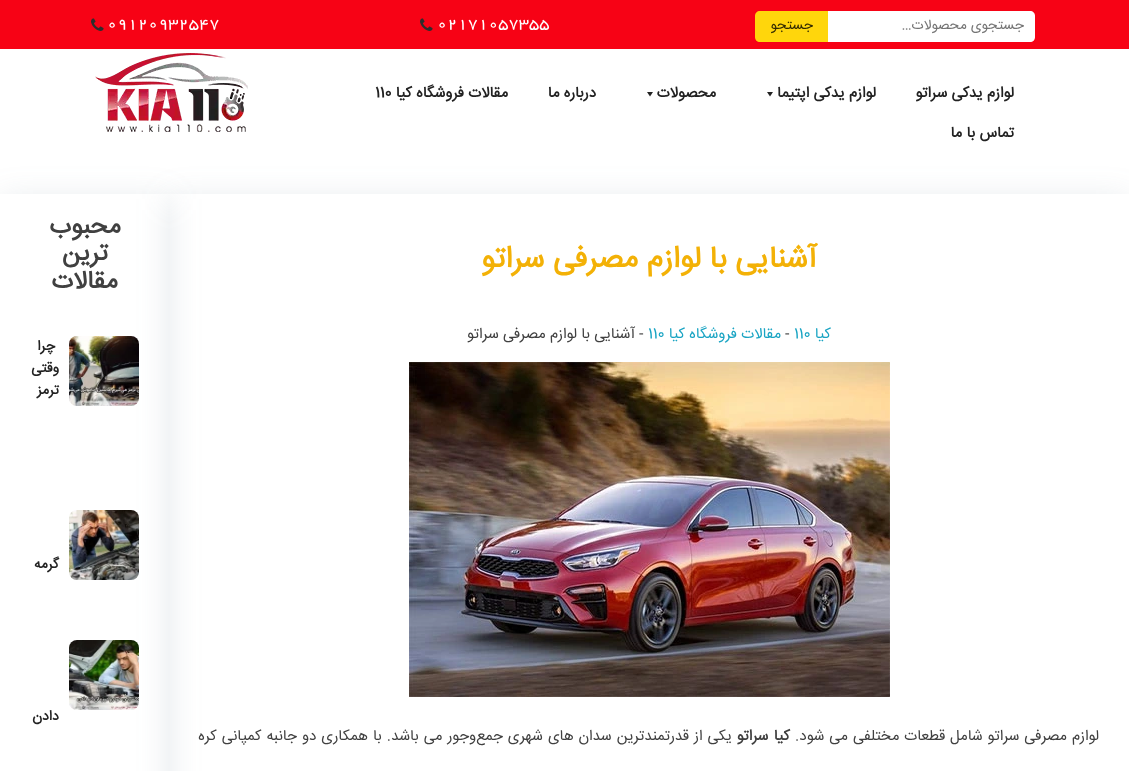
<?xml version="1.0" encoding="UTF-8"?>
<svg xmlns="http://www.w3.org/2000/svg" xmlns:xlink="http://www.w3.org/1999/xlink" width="1129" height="771">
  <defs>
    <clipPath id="clip1"><path d="M 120 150 h 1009 v 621 h -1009 z m 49 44 h 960 v 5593 h -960 z" clip-rule="evenodd" /></clipPath>
    <clipPath id="clip2"><path d="M 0 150 h 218 v 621 h -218 z m 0 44 h 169 v 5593 h -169 z" clip-rule="evenodd" /></clipPath>
  </defs>
  <rect width="100%" height="100%" fill="#ffffff" />
  <rect width="1129" height="49" fill="#f70215" />
  <path d="M 827 11 h 203 c 3 0 5 2 5 5 v 21 c 0 3 -2 5 -5 5 h -203 z" fill="#ffffff" />
  <path d="M 760 11 h 68 v 31 h -68 c -3 0 -5 -2 -5 -5 v -21 c 0 -3 2 -5 5 -5 z" fill="#ffd60c" />
  <image x="420" y="18" width="13" height="13" xlink:href="image1.png" />
  <image x="91" y="18" width="13" height="13" xlink:href="image1.png" />
  <path d="M 773 92 l -3 4.5 l -3 -4.5 z" fill="#222222" />
  <path d="M 653 92 l -3 4.5 l -3 -4.5 z" fill="#222222" />
  <image x="95" y="53" width="153" height="79" xlink:href="image2.png" />
  <g clip-path="url(#clip1)">
    <rect x="169" y="199" width="960" height="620" fill="#677a8d" fill-opacity="0.17" filter="blur(16px)" />
  </g>
  <image x="409" y="362" width="481" height="335" xlink:href="image3.png" />
  <g clip-path="url(#clip2)">
    <rect y="199" width="169" height="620" fill="#677a8d" fill-opacity="0.17" filter="blur(16px)" />
  </g>
  <image x="69" y="336" width="70" height="70" xlink:href="image4.png" />
  <image x="69" y="510" width="70" height="70" xlink:href="image5.png" />
  <image x="69" y="640" width="70" height="70" xlink:href="image6.png" />
  <text x="1024" y="29" style="font-family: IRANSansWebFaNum; font-size: 14px; direction: rtl; fill: #757575">جستجوی محصولات…</text>
  <text x="813" y="29" style="font-family: IRANSansWebFaNum; font-size: 14px; direction: rtl; fill: #332b02">جستجو</text>
  <text x="437" y="28" style="font-family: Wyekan; font-size: 19px; fill: #ffffff">02171057355</text>
  <text x="107" y="28" style="font-family: Wyekan; font-size: 19px; fill: #ffffff">09120932547</text>
  <text x="1014" y="97" style="font-family: IRANSansWebFaNum; font-size: 15px; font-weight: bold; direction: rtl; fill: #222222">لوازم یدکی سراتو</text>
  <text x="876" y="97" style="font-family: IRANSansWebFaNum; font-size: 15px; font-weight: bold; direction: rtl; fill: #222222">لوازم یدکی اپتیما</text>
  <text x="716" y="97" style="font-family: IRANSansWebFaNum; font-size: 15px; font-weight: bold; direction: rtl; fill: #222222">محصولات</text>
  <text x="596" y="97" style="font-family: IRANSansWebFaNum; font-size: 15px; font-weight: bold; direction: rtl; fill: #222222">درباره ما</text>
  <text x="508" y="97" style="font-family: IRANSansWebFaNum; font-size: 15px; font-weight: bold; direction: rtl; fill: #222222">مقالات فروشگاه کیا</text>
  <text x="375" y="97" style="font-family: IRANSansWebFaNum; font-size: 15px; font-weight: bold; fill: #222222">110</text>
  <text x="1014" y="137" style="font-family: IRANSansWebFaNum; font-size: 15px; font-weight: bold; direction: rtl; fill: #222222">تماس با ما</text>
  <text x="817" y="267" style="font-family: IRANSansWebFaNum; font-size: 30px; font-weight: bold; direction: rtl; fill: #f3b106">آشنایی با لوازم مصرفی سراتو</text>
  <text x="831" y="338" style="font-family: IRANSansWebFaNum; font-size: 15px; direction: rtl; fill: #19a4c3">کیا</text>
  <text x="794" y="338" style="font-family: IRANSansWebFaNum; font-size: 15px; fill: #19a4c3">110</text>
  <text x="785" y="338" style="font-family: IRANSansWebFaNum; font-size: 15px; fill: #404040">-</text>
  <text x="781" y="338" style="font-family: IRANSansWebFaNum; font-size: 15px; direction: rtl; fill: #19a4c3">مقالات فروشگاه کیا</text>
  <text x="648" y="338" style="font-family: IRANSansWebFaNum; font-size: 15px; fill: #19a4c3">110</text>
  <text x="639" y="338" style="font-family: IRANSansWebFaNum; font-size: 15px; fill: #404040">-</text>
  <text x="635" y="338" style="font-family: IRANSansWebFaNum; font-size: 15px; direction: rtl; fill: #404040">آشنایی با لوازم مصرفی سراتو</text>
  <text x="1099" y="740" word-spacing="0.75" style="font-family: IRANSansWebFaNum; font-size: 15px; direction: rtl; fill: #404040">لوازم مصرفی سراتو شامل قطعات مختلفی می شود.</text>
  <text x="790" y="740" word-spacing="1" style="font-family: IRANSansWebFaNum; font-size: 15px; font-weight: bold; direction: rtl; fill: #404040">کیا سراتو</text>
  <text x="732" y="740" word-spacing="0.75" style="font-family: IRANSansWebFaNum; font-size: 15px; direction: rtl; fill: #404040">یکی از قدرتمندترین سدان های شهری جمع‌وجور می باشد. با همکاری دو جانبه کمپانی کره</text>
  <text x="121" y="233" style="font-family: IRANSansWebFaNum; font-size: 25px; font-weight: bold; direction: rtl; fill: #404040">محبوب</text>
  <text x="108" y="260" style="font-family: IRANSansWebFaNum; font-size: 25px; font-weight: bold; direction: rtl; fill: #404040">ترین</text>
  <text x="118" y="288" style="font-family: IRANSansWebFaNum; font-size: 25px; font-weight: bold; direction: rtl; fill: #404040">مقالات</text>
  <text x="55" y="350" style="font-family: IRANSansWebFaNum; font-size: 14px; font-weight: bold; direction: rtl; fill: #222222">چرا</text>
  <text x="59" y="372" style="font-family: IRANSansWebFaNum; font-size: 14px; font-weight: bold; direction: rtl; fill: #222222">وقتی</text>
  <text x="59" y="394" style="font-family: IRANSansWebFaNum; font-size: 14px; font-weight: bold; direction: rtl; fill: #222222">ترمز</text>
  <text x="59" y="568" style="font-family: IRANSansWebFaNum; font-size: 14px; font-weight: bold; direction: rtl; fill: #222222">گرمه</text>
  <text x="59" y="720" style="font-family: IRANSansWebFaNum; font-size: 14px; font-weight: bold; direction: rtl; fill: #222222">دادن</text>
</svg>
